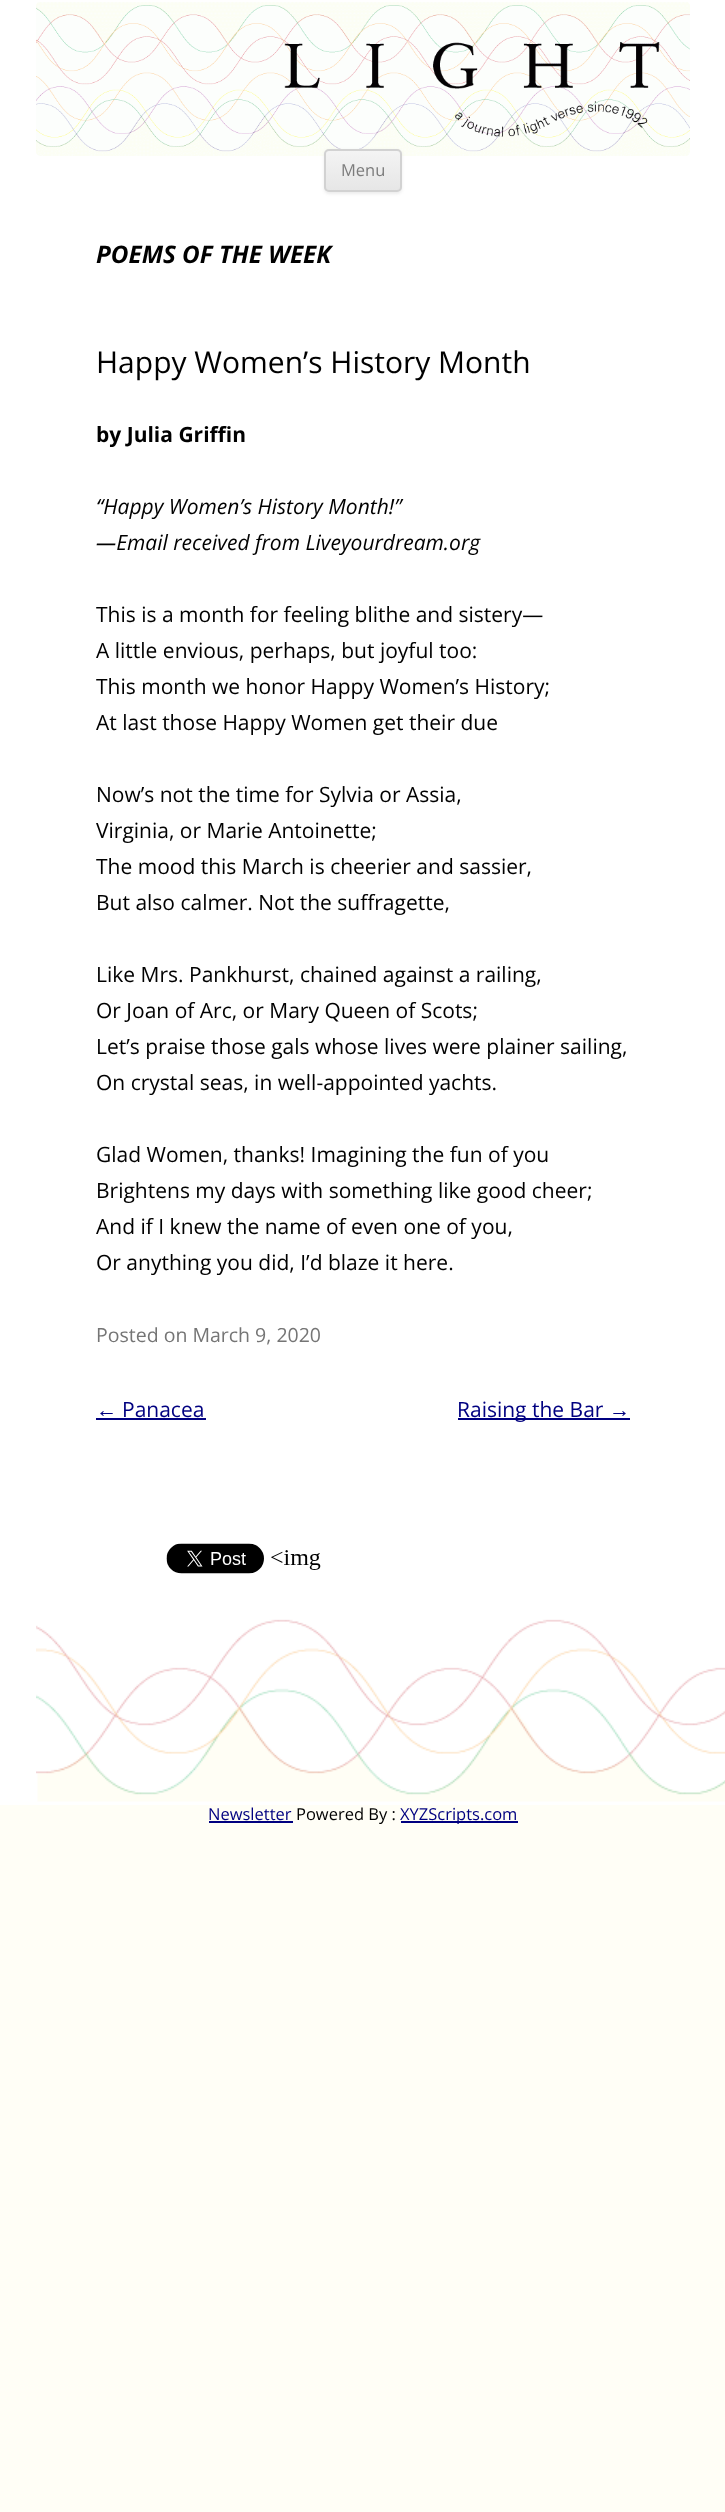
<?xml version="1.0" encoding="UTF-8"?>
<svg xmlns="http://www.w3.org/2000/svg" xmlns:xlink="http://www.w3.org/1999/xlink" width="725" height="2512">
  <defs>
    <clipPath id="clip1"><rect x="324" y="149" width="78" height="43" rx="5" /></clipPath>
    <linearGradient id="g1" gradientUnits="userSpaceOnUse" x1="363" y1="150" x2="363" y2="191"><stop offset="0" stop-color="#f4f4f4" /><stop offset="1" stop-color="#e6e6e6" /></linearGradient>
  </defs>
  <rect width="100%" height="100%" fill="#fffef6" />
  <rect width="725" height="1805" fill="#ffffff" />
  <image x="36" y="2" width="654" height="154" xlink:href="image1.png" />
  <rect x="324" y="150" width="78" height="44" rx="5" fill="#404040" fill-opacity="0.1" filter="blur(1.5px)" />
  <g clip-path="url(#clip1)">
    <rect x="324" y="150" width="78" height="41" fill="url(#g1)" />
  </g>
  <rect x="325" y="150" width="76" height="41" rx="4" fill="none" stroke="#d2d2d2" stroke-width="2" />
  <rect x="96" y="1418" width="110" height="2" fill="#000080" />
  <rect x="458" y="1418" width="172" height="2" fill="#000080" />
  <image x="166" y="1543" width="98" height="31" xlink:href="image2.png" />
  <image x="271" y="1550" width="50" height="20" xlink:href="image3.png" />
  <image x="36" y="1619" width="689" height="183" xlink:href="image4.png" />
  <rect x="209" y="1821" width="84" height="2" fill="#000080" />
  <rect x="401" y="1821" width="117" height="2" fill="#000080" />
  <text x="341" y="176" style="font-family: Open Sans; font-size: 16.5px; fill: #7c7c7c">Menu</text>
  <text x="96" y="263" style="font-family: Open Sans; font-size: 24.25px; font-weight: bold; font-style: italic; fill: #000000">POEMS OF THE WEEK</text>
  <text x="96" y="373" style="font-family: Open Sans; font-size: 30px; fill: #000000">Happy Women’s History Month</text>
  <text x="96" y="442" style="font-family: Open Sans; font-size: 21px; font-weight: bold; fill: #000000">by Julia Griffin</text>
  <text x="96" y="514" style="font-family: Open Sans; font-size: 21px; font-style: italic; fill: #000000">“Happy Women’s History Month!”</text>
  <text x="96" y="550" style="font-family: Open Sans; font-size: 21px; font-style: italic; fill: #000000">—Email received from Liveyourdream.org</text>
  <text x="96" y="622" style="font-family: Open Sans; font-size: 21px; fill: #000000">This is a month for feeling blithe and sistery—</text>
  <text x="96" y="658" style="font-family: Open Sans; font-size: 21px; fill: #000000">A little envious, perhaps, but joyful too:</text>
  <text x="96" y="694" style="font-family: Open Sans; font-size: 21px; fill: #000000">This month we honor Happy Women’s History;</text>
  <text x="96" y="730" style="font-family: Open Sans; font-size: 21px; fill: #000000">At last those Happy Women get their due</text>
  <text x="96" y="802" style="font-family: Open Sans; font-size: 21px; fill: #000000">Now’s not the time for Sylvia or Assia,</text>
  <text x="96" y="838" style="font-family: Open Sans; font-size: 21px; fill: #000000">Virginia, or Marie Antoinette;</text>
  <text x="96" y="874" style="font-family: Open Sans; font-size: 21px; fill: #000000">The mood this March is cheerier and sassier,</text>
  <text x="96" y="910" style="font-family: Open Sans; font-size: 21px; fill: #000000">But also calmer. Not the suffragette,</text>
  <text x="96" y="982" style="font-family: Open Sans; font-size: 21px; fill: #000000">Like Mrs. Pankhurst, chained against a railing,</text>
  <text x="96" y="1018" style="font-family: Open Sans; font-size: 21px; fill: #000000">Or Joan of Arc, or Mary Queen of Scots;</text>
  <text x="96" y="1054" style="font-family: Open Sans; font-size: 21px; fill: #000000">Let’s praise those gals whose lives were plainer sailing,</text>
  <text x="96" y="1090" style="font-family: Open Sans; font-size: 21px; fill: #000000">On crystal seas, in well-appointed yachts.</text>
  <text x="96" y="1162" style="font-family: Open Sans; font-size: 21px; fill: #000000">Glad Women, thanks! Imagining the fun of you</text>
  <text x="96" y="1198" style="font-family: Open Sans; font-size: 21px; fill: #000000">Brightens my days with something like good cheer;</text>
  <text x="96" y="1234" style="font-family: Open Sans; font-size: 21px; fill: #000000">And if I knew the name of even one of you,</text>
  <text x="96" y="1270" style="font-family: Open Sans; font-size: 21px; fill: #000000">Or anything you did, I’d blaze it here.</text>
  <text x="96" y="1342" style="font-family: Open Sans; font-size: 19.5px; fill: #757575">Posted on March 9, 2020</text>
  <text x="96" y="1417" style="font-family: Liberation Sans; font-size: 21px; fill: #000080">←</text>
  <text x="122" y="1417" style="font-family: Open Sans; font-size: 21px; fill: #000080">Panacea</text>
  <text x="457" y="1417" style="font-family: Open Sans; font-size: 21px; fill: #000080">Raising the Bar</text>
  <text x="609" y="1417" style="font-family: Liberation Sans; font-size: 21px; fill: #000080">→</text>
  <text x="208" y="1820" style="font-family: Open Sans; font-size: 16.5px; fill: #000080">Newsletter</text>
  <text x="296" y="1820" style="font-family: Open Sans; font-size: 16.5px; fill: #000000">Powered By :</text>
  <text x="400" y="1820" style="font-family: Open Sans; font-size: 16.5px; fill: #000080">XYZScripts.com</text>
</svg>
